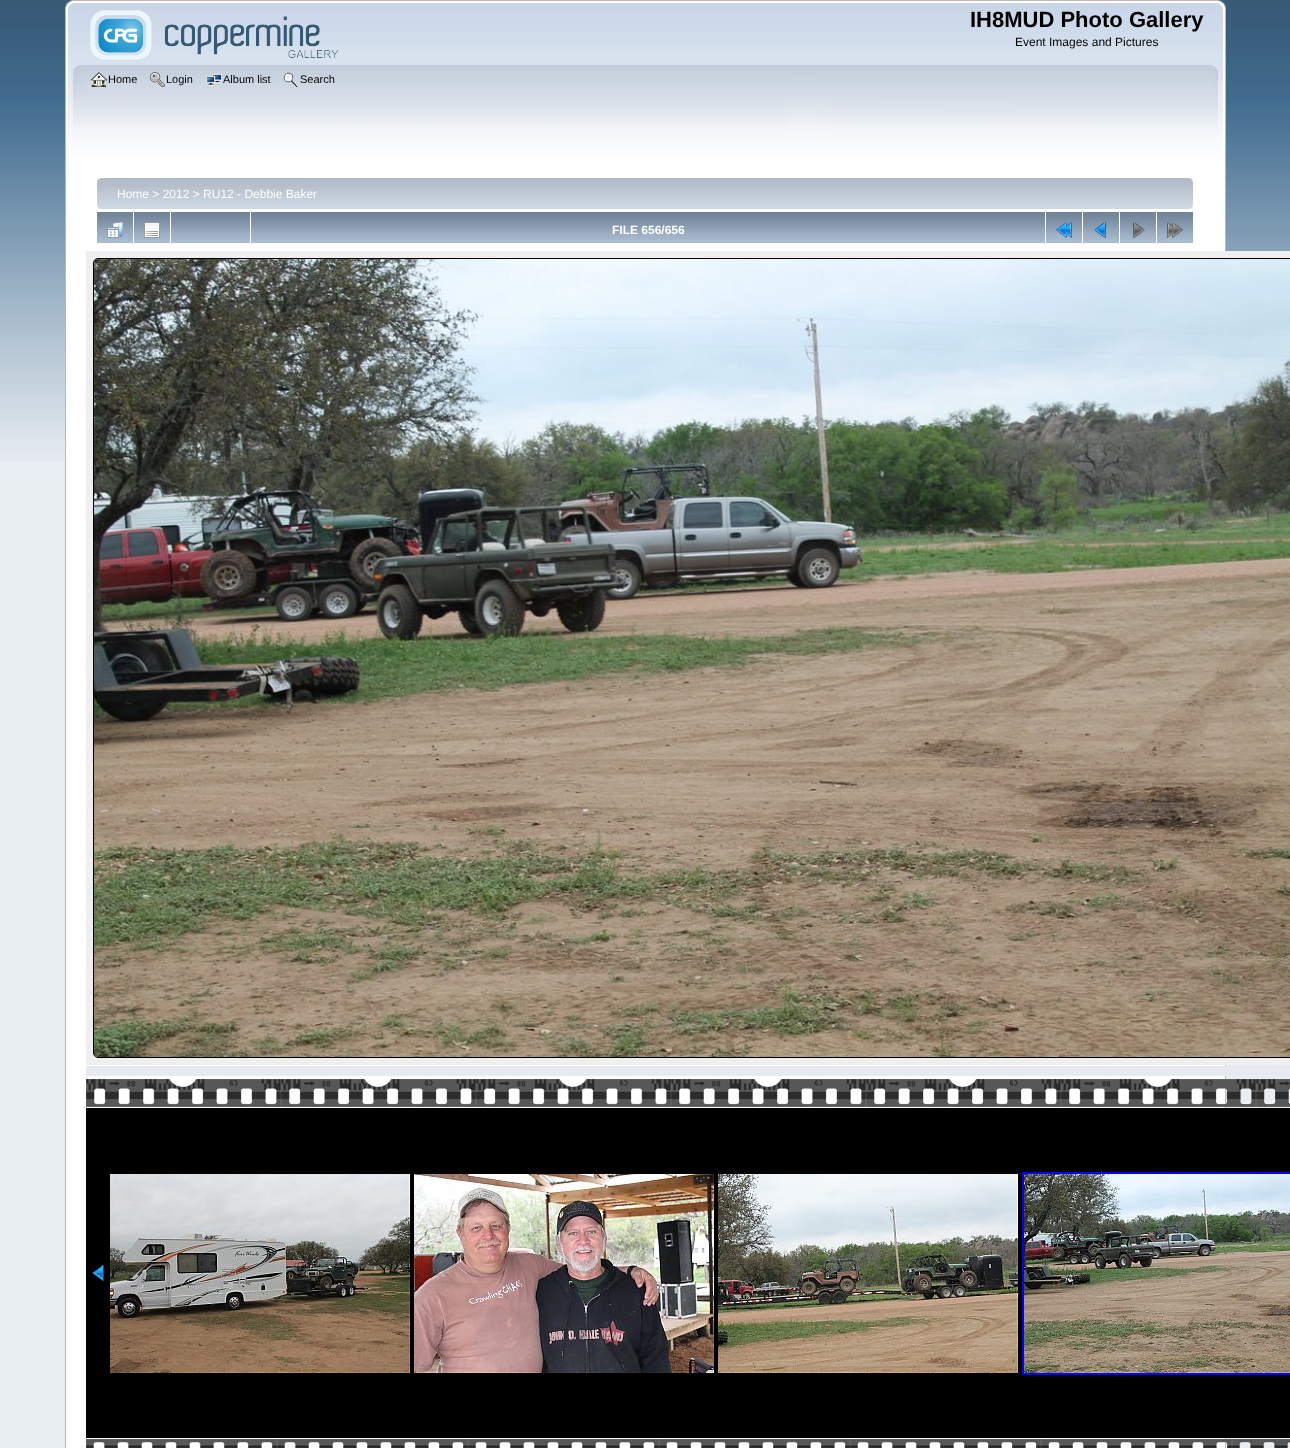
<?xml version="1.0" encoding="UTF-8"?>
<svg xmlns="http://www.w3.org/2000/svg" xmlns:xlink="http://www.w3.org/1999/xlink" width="1290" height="1448">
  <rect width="100%" height="100%" fill="#e9eef2" />
  <image x="0" y="0" width="1290" height="462" xlink:href="image1.png" />
  <image x="65" y="0" width="1153" height="65" xlink:href="image2.png" />
  <image x="1218" y="0" width="8" height="65" xlink:href="image3.png" />
  <image x="90" y="10" width="248" height="50" xlink:href="image4.png" />
  <image x="65" y="65" width="1146" height="110" xlink:href="image5.png" />
  <image x="1211" y="65" width="15" height="110" xlink:href="image6.png" />
  <image x="91" y="72" width="16" height="16" xlink:href="image7.png" />
  <image x="150" y="72" width="15" height="15" xlink:href="image8.png" />
  <image x="206" y="74" width="16" height="12" xlink:href="image9.png" />
  <image x="283" y="72" width="16" height="15" xlink:href="image10.png" />
  <rect x="66" y="175" width="1159" height="1273" fill="#ffffff" />
  <rect x="65" y="175" width="1" height="1273" fill="#b7b7b7" />
  <rect x="1225" y="175" width="1" height="1273" fill="#b7b7b7" />
  <image x="97" y="178" width="1092" height="31" xlink:href="image11.png" />
  <image x="1189" y="178" width="4" height="31" xlink:href="image12.png" />
  <image x="97" y="212" width="36" height="31" xlink:href="image13.png" />
  <image x="107" y="222" width="16" height="16" xlink:href="image14.png" />
  <image x="134" y="212" width="36" height="31" xlink:href="image13.png" />
  <image x="144" y="222" width="16" height="16" xlink:href="image15.png" />
  <image x="171" y="212" width="79" height="31" xlink:href="image16.png" />
  <image x="251" y="212" width="794" height="31" xlink:href="image17.png" />
  <image x="1046" y="212" width="36" height="31" xlink:href="image13.png" />
  <image x="1056" y="222" width="16" height="16" xlink:href="image18.png" />
  <image x="1083" y="212" width="36" height="31" xlink:href="image13.png" />
  <image x="1094" y="222" width="12" height="16" xlink:href="image19.png" />
  <image x="1120" y="212" width="36" height="31" xlink:href="image13.png" />
  <image x="1133" y="222" width="12" height="16" xlink:href="image20.png" />
  <image x="1157" y="212" width="36" height="31" xlink:href="image13.png" />
  <image x="1167" y="222" width="16" height="16" xlink:href="image21.png" />
  <rect x="86" y="251" width="1204" height="814" fill="#efefef" />
  <rect x="93.5" y="258.5" width="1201" height="799" rx="4.5" fill="none" stroke="#000000" />
  <image x="94" y="259" width="1196" height="798" xlink:href="image22.png" />
  <rect x="86" y="1066" width="1204" height="10" fill="#e7eaef" />
  <image x="86" y="1079" width="1204" height="28" xlink:href="image23.png" />
  <rect x="86" y="1108" width="1204" height="330" fill="#000000" />
  <image x="92" y="1265" width="12" height="16" xlink:href="image24.png" />
  <image x="110" y="1174" width="300" height="199" xlink:href="image25.png" />
  <image x="414" y="1174" width="300" height="199" xlink:href="image26.png" />
  <image x="718" y="1174" width="300" height="199" xlink:href="image27.png" />
  <rect x="1023" y="1173" width="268" height="201" fill="none" stroke="#0000ff" stroke-width="2" />
  <image x="1024" y="1174" width="266" height="199" xlink:href="image28.png" />
  <image x="86" y="1439" width="1204" height="9" xlink:href="image29.png" />
  <text x="970" y="27" style="font-family: Liberation Sans; font-size: 22px; font-weight: bold; fill: #000000">IH8MUD Photo Gallery</text>
  <text x="1015" y="46" style="font-family: Liberation Sans; font-size: 12px; fill: #000000">Event Images and Pictures</text>
  <text x="108" y="83" style="font-family: Liberation Sans; font-size: 11px; fill: #000000">Home</text>
  <text x="166" y="83" style="font-family: Liberation Sans; font-size: 11px; fill: #000000">Login</text>
  <text x="223" y="83" style="font-family: Liberation Sans; font-size: 11px; fill: #000000">Album list</text>
  <text x="300" y="83" style="font-family: Liberation Sans; font-size: 11px; fill: #000000">Search</text>
  <text x="117" y="198" style="font-family: Liberation Sans; font-size: 12px; fill: #ffffff">Home &gt; 2012 &gt; RU12 - Debbie Baker</text>
  <text x="612" y="234" style="font-family: Liberation Sans; font-size: 12px; font-weight: bold; fill: #ffffff">FILE 656/656</text>
</svg>
